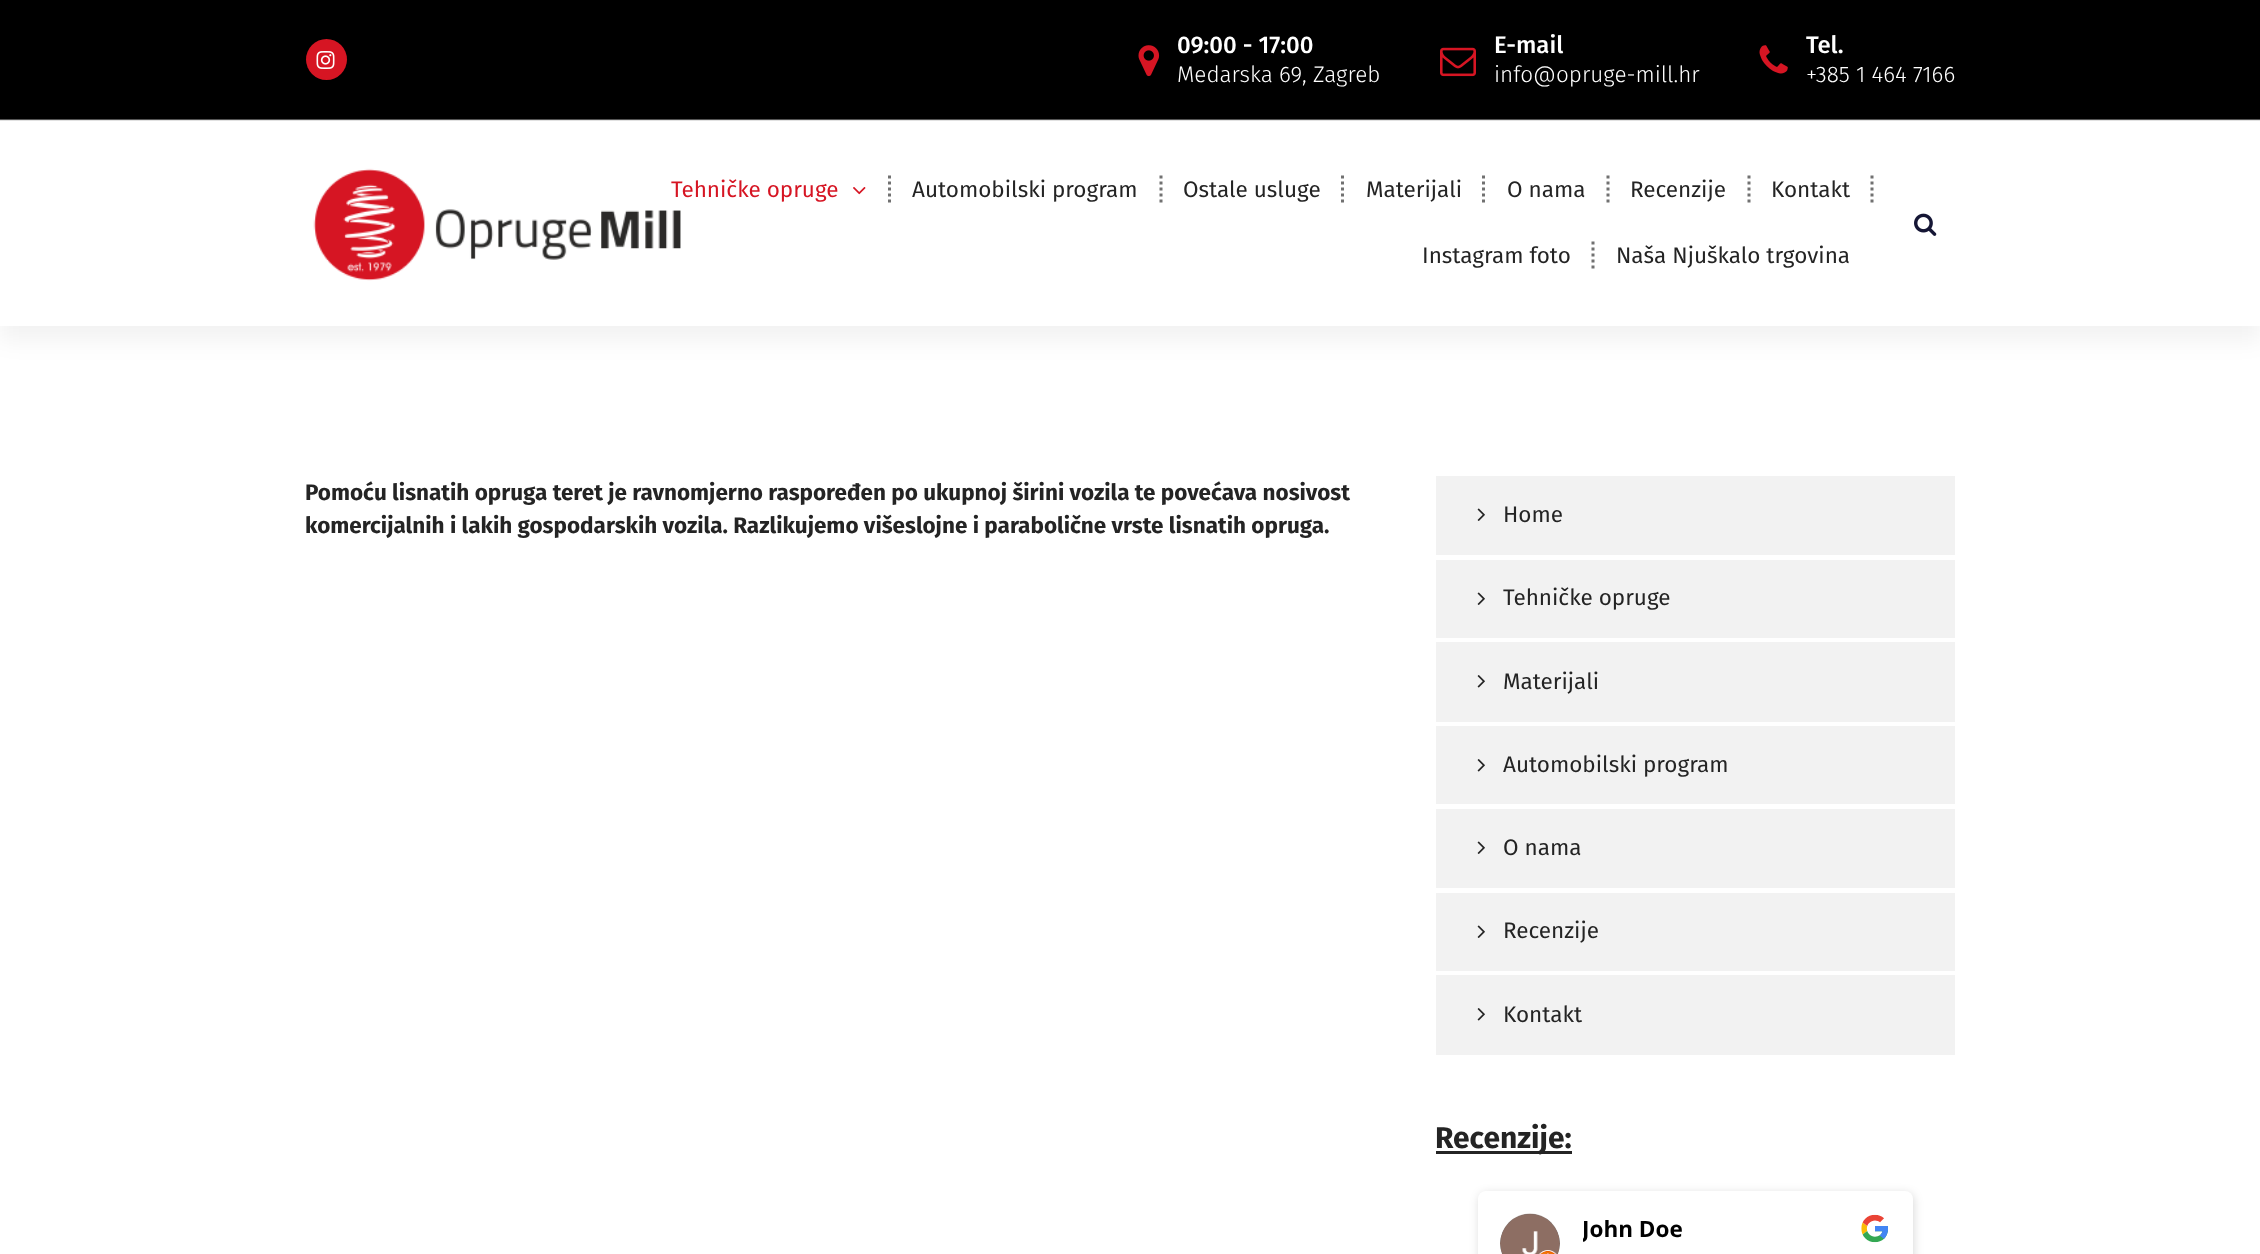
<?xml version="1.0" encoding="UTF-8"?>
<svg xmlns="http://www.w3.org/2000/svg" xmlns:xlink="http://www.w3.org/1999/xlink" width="2260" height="1254">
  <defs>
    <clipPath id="clip1"><path d="M 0 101 h 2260 v 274 h -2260 z m 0 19 h 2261 v 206 h -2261 z" clip-rule="evenodd" /></clipPath>
    <clipPath id="clip2"><rect x="1583" y="1214" width="307" height="31" /></clipPath>
  </defs>
  <rect width="100%" height="100%" fill="#ffffff" />
  <rect y="120" width="2260" height="1" fill="#e1e1e1" />
  <rect width="2260" height="119" fill="#000000" />
  <rect y="119" width="2260" height="1" fill="#555555" />
  <circle cx="326.5" cy="59.5" r="20.5" fill="#d61523" />
  <image x="316" y="51" width="19" height="18" xlink:href="image1.png" />
  <image x="1138" y="45" width="22" height="32" xlink:href="image2.png" />
  <image x="1440" y="47" width="36" height="30" xlink:href="image3.png" />
  <image x="1759" y="45" width="29" height="29" xlink:href="image4.png" />
  <g clip-path="url(#clip1)">
    <rect y="135" width="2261" height="206" fill="#000000" fill-opacity="0.05" filter="blur(11px)" />
  </g>
  <image x="313" y="168" width="368" height="113" xlink:href="image5.png" />
  <image x="853" y="187" width="13" height="8" xlink:href="image6.png" />
  <path d="M 889.5 175.5 v 30" fill="none" stroke="#717171" stroke-width="3" stroke-dasharray="3 3" />
  <path d="M 1161 175.5 v 30" fill="none" stroke="#717171" stroke-width="3" stroke-dasharray="3 3" />
  <path d="M 1342.5 175.5 v 30" fill="none" stroke="#717171" stroke-width="3" stroke-dasharray="3 3" />
  <path d="M 1483.5 175.5 v 30" fill="none" stroke="#717171" stroke-width="3" stroke-dasharray="3 3" />
  <path d="M 1608 175.5 v 30" fill="none" stroke="#717171" stroke-width="3" stroke-dasharray="3 3" />
  <path d="M 1749 175.5 v 30" fill="none" stroke="#717171" stroke-width="3" stroke-dasharray="3 3" />
  <path d="M 1872 175.5 v 30" fill="none" stroke="#717171" stroke-width="3" stroke-dasharray="3 3" />
  <path d="M 1593 241.5 v 30" fill="none" stroke="#717171" stroke-width="3" stroke-dasharray="3 3" />
  <image x="1914" y="213" width="23" height="23" xlink:href="image7.png" />
  <rect x="1436" y="476" width="519" height="79" fill="#f2f2f2" />
  <image x="1477" y="508" width="8" height="13" xlink:href="image8.png" />
  <rect x="1436" y="560" width="519" height="78" fill="#f2f2f2" />
  <image x="1477" y="592" width="8" height="13" xlink:href="image8.png" />
  <rect x="1436" y="642" width="519" height="80" fill="#f2f2f2" />
  <image x="1477" y="675" width="8" height="13" xlink:href="image9.png" />
  <rect x="1436" y="726" width="519" height="78" fill="#f2f2f2" />
  <image x="1477" y="759" width="8" height="13" xlink:href="image9.png" />
  <rect x="1436" y="809" width="519" height="79" fill="#f2f2f2" />
  <image x="1477" y="841" width="8" height="13" xlink:href="image8.png" />
  <rect x="1436" y="893" width="519" height="78" fill="#f2f2f2" />
  <image x="1477" y="925" width="8" height="13" xlink:href="image8.png" />
  <rect x="1436" y="975" width="519" height="80" fill="#f2f2f2" />
  <image x="1477" y="1008" width="8" height="13" xlink:href="image9.png" />
  <rect x="1436" y="1151" width="136" height="3" fill="#242424" />
  <rect x="1479" y="1193" width="435" height="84" rx="8" fill="#000000" fill-opacity="0.15" filter="blur(5px)" />
  <rect x="1478" y="1191" width="435" height="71" rx="8" fill="#ffffff" />
  <image x="1500" y="1213" width="60" height="41" xlink:href="image10.png" />
  <image x="1861" y="1214" width="27" height="29" xlink:href="image11.png" />
  <text x="1177" y="53" style="font-family: Fira Sans; font-size: 24px; font-weight: 500; fill: #ffffff">09:00 - 17:00</text>
  <text x="1177" y="82" style="font-family: Fira Sans; font-size: 22.5px; font-weight: 300; fill: #ffffff">Medarska 69, Zagreb</text>
  <text x="1494" y="53" style="font-family: Fira Sans; font-size: 24px; font-weight: 500; fill: #ffffff">E-mail</text>
  <text x="1494" y="82" style="font-family: Fira Sans; font-size: 22.5px; font-weight: 300; fill: #ffffff">info@opruge-mill.hr</text>
  <text x="1806" y="53" style="font-family: Fira Sans; font-size: 24px; font-weight: 500; fill: #ffffff">Tel.</text>
  <text x="1806" y="82" style="font-family: Fira Sans; font-size: 22.5px; font-weight: 300; fill: #ffffff">+385 1 464 7166</text>
  <text x="671" y="197" style="font-family: Fira Sans; font-size: 22.5px; fill: #d61523">Tehničke opruge</text>
  <text x="912" y="197" style="font-family: Fira Sans; font-size: 22.5px; fill: #242424">Automobilski program</text>
  <text x="1183" y="197" style="font-family: Fira Sans; font-size: 22.5px; fill: #242424">Ostale usluge</text>
  <text x="1366" y="197" style="font-family: Fira Sans; font-size: 22.5px; fill: #242424">Materijali</text>
  <text x="1507" y="197" style="font-family: Fira Sans; font-size: 22.5px; fill: #242424">O nama</text>
  <text x="1630" y="197" style="font-family: Fira Sans; font-size: 22.5px; fill: #242424">Recenzije</text>
  <text x="1771" y="197" style="font-family: Fira Sans; font-size: 22.5px; fill: #242424">Kontakt</text>
  <text x="1422" y="263" style="font-family: Fira Sans; font-size: 22.5px; fill: #242424">Instagram foto</text>
  <text x="1616" y="263" style="font-family: Fira Sans; font-size: 22.5px; fill: #242424">Naša Njuškalo trgovina</text>
  <text x="305" y="500" style="font-family: Fira Sans; font-size: 22.5px; font-weight: bold; fill: #242424">Pomoću lisnatih opruga teret je ravnomjerno raspoređen po ukupnoj širini vozila te povećava nosivost</text>
  <text x="305" y="533" style="font-family: Fira Sans; font-size: 22.5px; font-weight: bold; fill: #242424">komercijalnih i lakih gospodarskih vozila. Razlikujemo višeslojne i parabolične vrste lisnatih opruga.</text>
  <text x="1503" y="522" style="font-family: Fira Sans; font-size: 22.5px; fill: #242424">Home</text>
  <text x="1503" y="605" style="font-family: Fira Sans; font-size: 22.5px; fill: #242424">Tehničke opruge</text>
  <text x="1503" y="689" style="font-family: Fira Sans; font-size: 22.5px; fill: #242424">Materijali</text>
  <text x="1503" y="772" style="font-family: Fira Sans; font-size: 22.5px; fill: #242424">Automobilski program</text>
  <text x="1503" y="855" style="font-family: Fira Sans; font-size: 22.5px; fill: #242424">O nama</text>
  <text x="1503" y="938" style="font-family: Fira Sans; font-size: 22.5px; fill: #242424">Recenzije</text>
  <text x="1503" y="1022" style="font-family: Fira Sans; font-size: 22.5px; fill: #242424">Kontakt</text>
  <text x="1435" y="1148" style="font-family: Fira Sans; font-size: 30px; font-weight: bold; fill: #242424">Recenzije:</text>
  <g clip-path="url(#clip2)">
    <text x="1582" y="1237" style="font-family: Open Sans; font-size: 22.5px; font-weight: bold; fill: #000000">John Doe</text>
  </g>
</svg>
